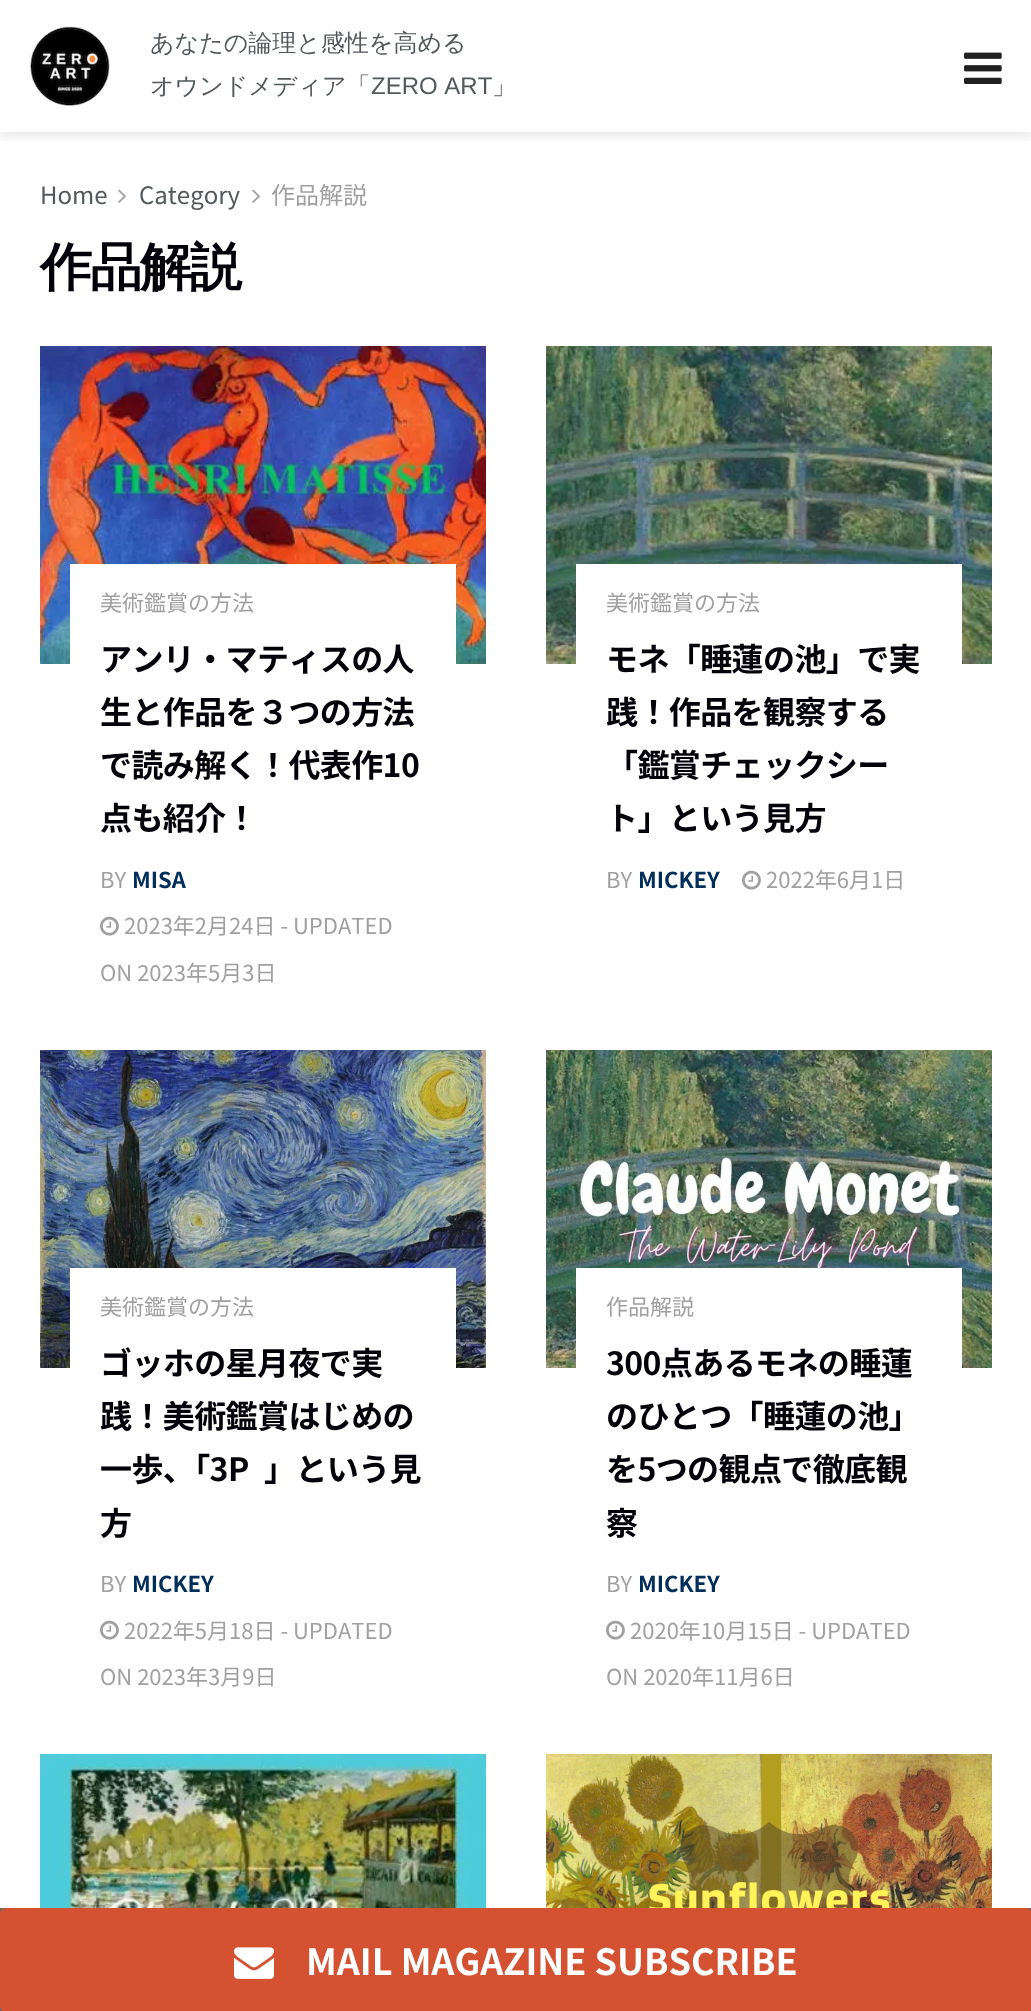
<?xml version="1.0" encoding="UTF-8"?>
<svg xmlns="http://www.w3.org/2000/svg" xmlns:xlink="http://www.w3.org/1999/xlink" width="1031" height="2011">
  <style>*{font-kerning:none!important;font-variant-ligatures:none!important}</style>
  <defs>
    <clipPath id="clip1"><rect x="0" y="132" width="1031" height="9" /></clipPath>
  </defs>
  <rect width="100%" height="100%" fill="#ffffff" />
  <g clip-path="url(#clip1)">
    <rect y="4" width="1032" height="132" fill="#000000" fill-opacity="0.1" filter="blur(6px)" />
  </g>
  <image x="30" y="26" width="80" height="80" xlink:href="image1.png" />
  <image x="964" y="52" width="38" height="32" xlink:href="image2.png" />
  <image x="118" y="189" width="8" height="14" xlink:href="image3.png" />
  <image x="252" y="189" width="8" height="14" xlink:href="image3.png" />
  <image x="40" y="346" width="446" height="318" xlink:href="image4.png" />
  <rect x="70" y="564" width="386" height="100" fill="#ffffff" />
  <image x="100" y="916" width="19" height="20" xlink:href="image5.png" />
  <image x="546" y="346" width="446" height="318" xlink:href="image6.png" />
  <rect x="576" y="564" width="386" height="100" fill="#ffffff" />
  <image x="742" y="870" width="19" height="20" xlink:href="image5.png" />
  <image x="40" y="1050" width="446" height="318" xlink:href="image7.png" />
  <rect x="70" y="1268" width="386" height="100" fill="#ffffff" />
  <image x="100" y="1620" width="19" height="20" xlink:href="image5.png" />
  <image x="546" y="1050" width="446" height="318" xlink:href="image8.png" />
  <rect x="576" y="1268" width="386" height="100" fill="#ffffff" />
  <image x="606" y="1620" width="19" height="20" xlink:href="image5.png" />
  <image x="40" y="1754" width="446" height="154" xlink:href="image9.png" />
  <image x="546" y="1754" width="446" height="154" xlink:href="image10.png" />
  <rect y="1908" width="1031" height="103" fill="#000000" fill-opacity="0.6" />
  <rect y="1908" width="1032" height="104" rx="6" fill="#d45131" />
  <image x="234" y="1947" width="40" height="32" xlink:href="image11.png" />
  <text x="150" y="51" style="font-family: WenQuanYi Zen Hei; font-size: 24px; font-weight: 500; fill: #53585c">あなたの論理と感性を高める</text>
  <text x="150" y="94" style="font-family: WenQuanYi Zen Hei; font-size: 24px; font-weight: 500; fill: #53585c">オウンドメディア「</text>
  <text x="371" y="94" style="font-family: Liberation Sans; font-size: 24px; fill: #53585c">ZERO ART</text>
  <text x="492" y="94" style="font-family: WenQuanYi Zen Hei; font-size: 24px; font-weight: 500; fill: #53585c">」</text>
  <text x="40" y="204" style="font-family: Noto Sans JP; font-size: 24px; fill: #53585c">Home</text>
  <text x="139" y="204" style="font-family: Noto Sans JP; font-size: 24px; fill: #53585c">Category</text>
  <text x="271" y="204" style="font-family: Noto Sans JP; font-size: 24px; fill: #a0a0a0">作品解説</text>
  <text x="40" y="285" style="font-family: WenQuanYi Zen Hei; font-size: 52px; font-weight: bold; letter-spacing: -2px; fill: #02010a">作品解説</text>
  <text x="100" y="611" style="font-family: Noto Sans JP; font-size: 22px; fill: #a0a0a0">美術鑑賞の方法</text>
  <text x="100" y="671" style="font-family: Noto Sans JP; font-size: 32px; font-weight: bold; letter-spacing: -0.6px; fill: #02010a">アンリ・マティスの人</text>
  <text x="100" y="724" style="font-family: Noto Sans JP; font-size: 32px; font-weight: bold; letter-spacing: -0.6px; fill: #02010a">生と作品を３つの方法</text>
  <text x="100" y="777" style="font-family: Noto Sans JP; font-size: 32px; font-weight: bold; letter-spacing: -0.6px; fill: #02010a">で読み解く！代表作10</text>
  <text x="100" y="830" style="font-family: Noto Sans JP; font-size: 32px; font-weight: bold; letter-spacing: -0.6px; fill: #02010a">点も紹介！</text>
  <text x="100" y="888" style="font-family: Noto Sans JP; font-size: 22px; fill: #a0a0a0">BY</text>
  <text x="132" y="888" style="font-family: Noto Sans JP; font-size: 22px; font-weight: bold; fill: #002e5b">MISA</text>
  <text x="124" y="934" style="font-family: Noto Sans JP; font-size: 22px; fill: #a0a0a0">2023年2月24日 - UPDATED</text>
  <text x="100" y="981" style="font-family: Noto Sans JP; font-size: 22px; fill: #a0a0a0">ON 2023年5月3日</text>
  <text x="606" y="611" style="font-family: Noto Sans JP; font-size: 22px; fill: #a0a0a0">美術鑑賞の方法</text>
  <text x="606" y="671" style="font-family: Noto Sans JP; font-size: 32px; font-weight: bold; letter-spacing: -0.6px; fill: #02010a">モネ「睡蓮の池」で実</text>
  <text x="606" y="724" style="font-family: Noto Sans JP; font-size: 32px; font-weight: bold; letter-spacing: -0.6px; fill: #02010a">践！作品を観察する</text>
  <text x="606" y="777" style="font-family: Noto Sans JP; font-size: 32px; font-weight: bold; letter-spacing: -0.6px; fill: #02010a">「鑑賞チェックシー</text>
  <text x="606" y="830" style="font-family: Noto Sans JP; font-size: 32px; font-weight: bold; letter-spacing: -0.6px; fill: #02010a">ト」という見方</text>
  <text x="606" y="888" style="font-family: Noto Sans JP; font-size: 22px; fill: #a0a0a0">BY</text>
  <text x="638" y="888" style="font-family: Noto Sans JP; font-size: 22px; font-weight: bold; fill: #002e5b">MICKEY</text>
  <text x="766" y="888" style="font-family: Noto Sans JP; font-size: 22px; fill: #a0a0a0">2022年6月1日</text>
  <text x="100" y="1315" style="font-family: Noto Sans JP; font-size: 22px; fill: #a0a0a0">美術鑑賞の方法</text>
  <text x="100" y="1375" style="font-family: Noto Sans JP; font-size: 32px; font-weight: bold; letter-spacing: -0.6px; fill: #02010a">ゴッホの星月夜で実</text>
  <text x="100" y="1428" style="font-family: Noto Sans JP; font-size: 32px; font-weight: bold; letter-spacing: -0.6px; fill: #02010a">践！美術鑑賞はじめの</text>
  <text x="100" y="1481" style="font-family: Noto Sans JP; font-size: 32px; font-weight: bold; letter-spacing: -0.6px; fill: #02010a">一歩、「3P</text>
  <text x="264" y="1481" style="font-family: Noto Sans JP; font-size: 32px; font-weight: bold; letter-spacing: -0.6px; fill: #02010a">」という見</text>
  <text x="100" y="1535" style="font-family: Noto Sans JP; font-size: 32px; font-weight: bold; letter-spacing: -0.6px; fill: #02010a">方</text>
  <text x="100" y="1592" style="font-family: Noto Sans JP; font-size: 22px; fill: #a0a0a0">BY</text>
  <text x="132" y="1592" style="font-family: Noto Sans JP; font-size: 22px; font-weight: bold; fill: #002e5b">MICKEY</text>
  <text x="124" y="1639" style="font-family: Noto Sans JP; font-size: 22px; fill: #a0a0a0">2022年5月18日 - UPDATED</text>
  <text x="100" y="1685" style="font-family: Noto Sans JP; font-size: 22px; fill: #a0a0a0">ON 2023年3月9日</text>
  <text x="606" y="1315" style="font-family: Noto Sans JP; font-size: 22px; fill: #a0a0a0">作品解説</text>
  <text x="606" y="1375" style="font-family: Noto Sans JP; font-size: 32px; font-weight: bold; letter-spacing: -0.6px; fill: #02010a">300点あるモネの睡蓮</text>
  <text x="606" y="1428" style="font-family: Noto Sans JP; font-size: 32px; font-weight: bold; letter-spacing: -0.6px; fill: #02010a">のひとつ「睡蓮の池」</text>
  <text x="606" y="1481" style="font-family: Noto Sans JP; font-size: 32px; font-weight: bold; letter-spacing: -0.6px; fill: #02010a">を5つの観点で徹底観</text>
  <text x="606" y="1535" style="font-family: Noto Sans JP; font-size: 32px; font-weight: bold; letter-spacing: -0.6px; fill: #02010a">察</text>
  <text x="606" y="1592" style="font-family: Noto Sans JP; font-size: 22px; fill: #a0a0a0">BY</text>
  <text x="638" y="1592" style="font-family: Noto Sans JP; font-size: 22px; font-weight: bold; fill: #002e5b">MICKEY</text>
  <text x="630" y="1639" style="font-family: Noto Sans JP; font-size: 22px; fill: #a0a0a0">2020年10月15日 - UPDATED</text>
  <text x="606" y="1685" style="font-family: Noto Sans JP; font-size: 22px; fill: #a0a0a0">ON 2020年11月6日</text>
  <text x="306" y="1975" style="font-family: Noto Sans JP; font-size: 36px; font-weight: bold; fill: #ffffff">MAIL MAGAZINE SUBSCRIBE</text>
</svg>
